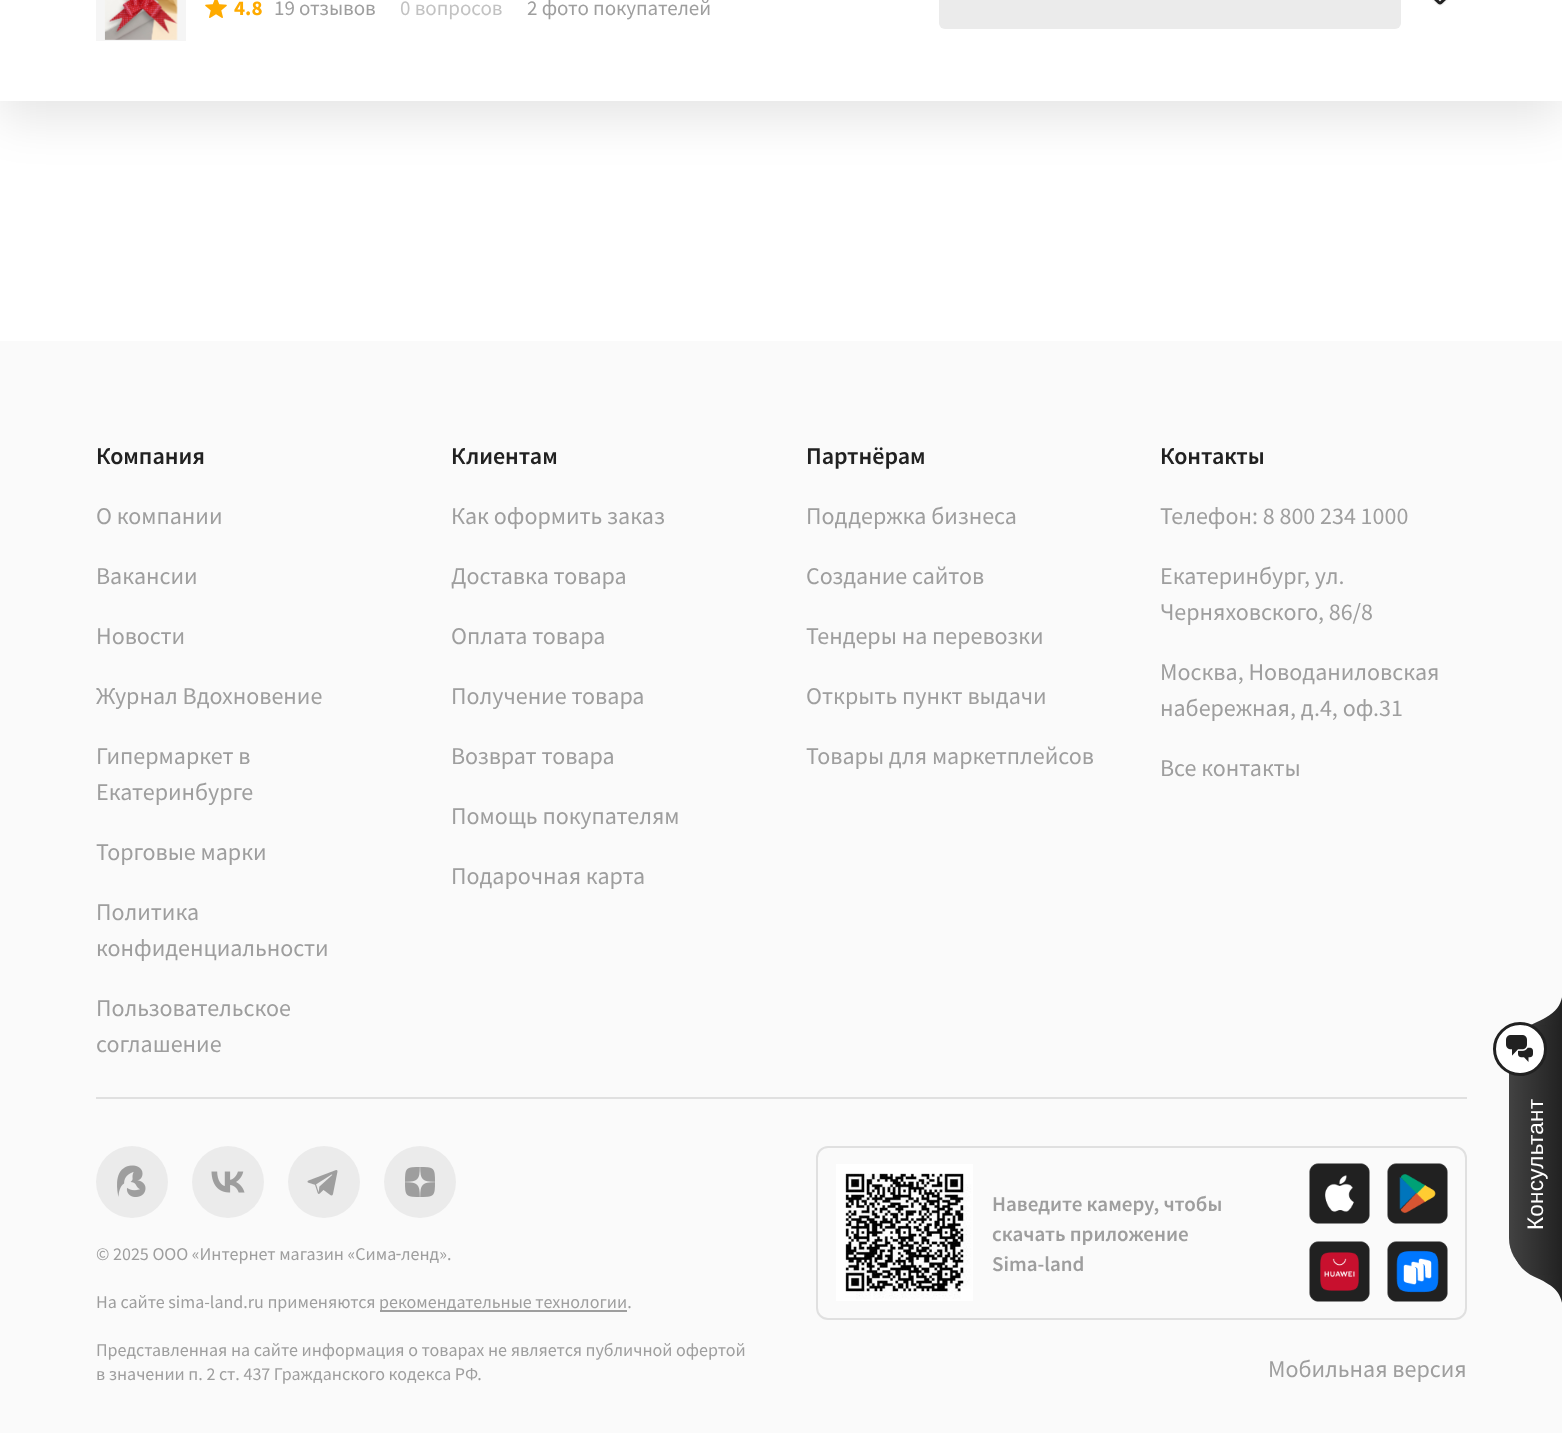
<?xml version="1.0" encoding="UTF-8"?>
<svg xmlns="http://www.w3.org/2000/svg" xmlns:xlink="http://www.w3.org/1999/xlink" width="1562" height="1433">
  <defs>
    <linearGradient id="g1" gradientUnits="userSpaceOnUse" x1="1512" y1="1060" x2="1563" y2="1060"><stop offset="0" stop-color="#ffffff" stop-opacity="0.15" /><stop offset="1" stop-color="#ffffff" stop-opacity="0" /></linearGradient>
    <linearGradient id="g2" gradientUnits="userSpaceOnUse" x1="1512" y1="1240" x2="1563" y2="1240"><stop offset="0" stop-color="#ffffff" stop-opacity="0.15" /><stop offset="1" stop-color="#ffffff" stop-opacity="0" /></linearGradient>
    <linearGradient id="g3" gradientUnits="userSpaceOnUse" x1="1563" y1="1150" x2="1509" y2="1150"><stop offset="0" stop-color="#ffffff" stop-opacity="0" /><stop offset="1" stop-color="#ffffff" stop-opacity="0.15" /></linearGradient>
  </defs>
  <rect width="100%" height="100%" fill="#ffffff" />
  <rect y="-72" width="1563" height="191" fill="#000000" fill-opacity="0.1" filter="blur(24px)" />
  <rect width="1562" height="101" fill="#ffffff" />
  <rect x="96" width="90" height="41" fill="#f5f5f5" />
  <image x="104" y="0" width="74" height="40" xlink:href="image1.png" />
  <image x="205" y="0" width="22" height="18" xlink:href="image2.png" />
  <rect x="939" y="-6" width="462" height="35" rx="6" fill="#ebebeb" />
  <image x="1432" y="0" width="16" height="6" xlink:href="image3.png" />
  <image x="1434" y="0" width="12" height="5" xlink:href="image4.png" />
  <rect y="341" width="1562" height="1092" fill="#fafafa" />
  <rect x="96" y="1097" width="1371" height="2" fill="#e0e0e0" />
  <circle cx="132" cy="1182" r="36" fill="#ebebeb" />
  <image x="117" y="1165" width="29" height="32" xlink:href="image5.png" />
  <circle cx="228" cy="1182" r="36" fill="#ebebeb" />
  <image x="211" y="1171" width="34" height="22" xlink:href="image6.png" />
  <circle cx="324" cy="1182" r="36" fill="#ebebeb" />
  <image x="307" y="1170" width="31" height="26" xlink:href="image7.png" />
  <circle cx="420" cy="1182" r="36" fill="#ebebeb" />
  <image x="405" y="1167" width="30" height="30" xlink:href="image8.png" />
  <rect x="380" y="1310" width="247" height="2" fill="#9e9e9e" />
  <rect x="817" y="1147" width="649" height="172" rx="11" fill="none" stroke="#e0e0e0" stroke-width="2" />
  <image x="836" y="1164" width="137" height="137" xlink:href="image9.png" />
  <image x="1309" y="1163" width="61" height="61" xlink:href="image10.png" />
  <image x="1387" y="1163" width="61" height="61" xlink:href="image11.png" />
  <image x="1309" y="1241" width="61" height="61" xlink:href="image12.png" />
  <image x="1387" y="1241" width="61" height="61" xlink:href="image13.png" />
  <path d="M 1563 992 v 54 h -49 c 3 -11 11 -19 23 -24 c 22 -10 24 -18 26 -30 z" fill="#212121" />
  <path d="M 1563 992 v 54 h -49 c 3 -11 11 -19 23 -24 c 22 -10 24 -18 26 -30 z" fill="url(#g1)" />
  <path d="M 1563 1254 h -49 c 3 11 11 19 23 24 c 22 10 24 18 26 30 z" fill="#212121" />
  <path d="M 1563 1254 h -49 c 3 11 11 19 23 24 c 22 10 24 18 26 30 z" fill="url(#g2)" />
  <path d="M 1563 1025 v 250 h -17 c -20 0 -37 -16 -37 -37 v -175 c 0 -21 17 -38 37 -38 z" fill="#212121" />
  <path d="M 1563 1025 v 250 h -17 c -20 0 -37 -16 -37 -37 v -175 c 0 -21 17 -38 37 -38 z" fill="url(#g3)" />
  <circle cx="1520" cy="1049" r="25.5" fill="#ffffff" stroke="#212121" stroke-width="3" />
  <image x="1506" y="1035" width="27" height="27" xlink:href="image14.png" />
  <text x="234" y="15" style="font-family: Source Sans Pro; font-size: 21px; font-weight: bold; fill: #ffab00">4.8</text>
  <text x="274" y="15" style="font-family: Source Sans Pro; font-size: 21px; fill: #9e9e9e">19 отзывов</text>
  <text x="400" y="15" style="font-family: Source Sans Pro; font-size: 21px; fill: #c2c2c2">0 вопросов</text>
  <text x="527" y="15" style="font-family: Source Sans Pro; font-size: 21px; fill: #9e9e9e">2 фото покупателей</text>
  <text x="96" y="464" style="font-family: Source Sans Pro; font-size: 24px; font-weight: 600; fill: #212121">Компания</text>
  <text x="96" y="524" style="font-family: Source Sans Pro; font-size: 24px; fill: #9e9e9e">О компании</text>
  <text x="96" y="584" style="font-family: Source Sans Pro; font-size: 24px; fill: #9e9e9e">Вакансии</text>
  <text x="96" y="644" style="font-family: Source Sans Pro; font-size: 24px; fill: #9e9e9e">Новости</text>
  <text x="96" y="704" style="font-family: Source Sans Pro; font-size: 24px; fill: #9e9e9e">Журнал Вдохновение</text>
  <text x="96" y="764" style="font-family: Source Sans Pro; font-size: 24px; fill: #9e9e9e">Гипермаркет в</text>
  <text x="96" y="800" style="font-family: Source Sans Pro; font-size: 24px; fill: #9e9e9e">Екатеринбурге</text>
  <text x="96" y="860" style="font-family: Source Sans Pro; font-size: 24px; fill: #9e9e9e">Торговые марки</text>
  <text x="96" y="920" style="font-family: Source Sans Pro; font-size: 24px; fill: #9e9e9e">Политика</text>
  <text x="96" y="956" style="font-family: Source Sans Pro; font-size: 24px; fill: #9e9e9e">конфиденциальности</text>
  <text x="96" y="1016" style="font-family: Source Sans Pro; font-size: 24px; fill: #9e9e9e">Пользовательское</text>
  <text x="96" y="1052" style="font-family: Source Sans Pro; font-size: 24px; fill: #9e9e9e">соглашение</text>
  <text x="451" y="464" style="font-family: Source Sans Pro; font-size: 24px; font-weight: 600; fill: #212121">Клиентам</text>
  <text x="451" y="524" style="font-family: Source Sans Pro; font-size: 24px; fill: #9e9e9e">Как оформить заказ</text>
  <text x="451" y="584" style="font-family: Source Sans Pro; font-size: 24px; fill: #9e9e9e">Доставка товара</text>
  <text x="451" y="644" style="font-family: Source Sans Pro; font-size: 24px; fill: #9e9e9e">Оплата товара</text>
  <text x="451" y="704" style="font-family: Source Sans Pro; font-size: 24px; fill: #9e9e9e">Получение товара</text>
  <text x="451" y="764" style="font-family: Source Sans Pro; font-size: 24px; fill: #9e9e9e">Возврат товара</text>
  <text x="451" y="824" style="font-family: Source Sans Pro; font-size: 24px; fill: #9e9e9e">Помощь покупателям</text>
  <text x="451" y="884" style="font-family: Source Sans Pro; font-size: 24px; fill: #9e9e9e">Подарочная карта</text>
  <text x="806" y="464" style="font-family: Source Sans Pro; font-size: 24px; font-weight: 600; fill: #212121">Партнёрам</text>
  <text x="806" y="524" style="font-family: Source Sans Pro; font-size: 24px; fill: #9e9e9e">Поддержка бизнеса</text>
  <text x="806" y="584" style="font-family: Source Sans Pro; font-size: 24px; fill: #9e9e9e">Создание сайтов</text>
  <text x="806" y="644" style="font-family: Source Sans Pro; font-size: 24px; fill: #9e9e9e">Тендеры на перевозки</text>
  <text x="806" y="704" style="font-family: Source Sans Pro; font-size: 24px; fill: #9e9e9e">Открыть пункт выдачи</text>
  <text x="806" y="764" style="font-family: Source Sans Pro; font-size: 24px; fill: #9e9e9e">Товары для маркетплейсов</text>
  <text x="1160" y="464" style="font-family: Source Sans Pro; font-size: 24px; font-weight: 600; fill: #212121">Контакты</text>
  <text x="1160" y="524" style="font-family: Source Sans Pro; font-size: 24px; fill: #9e9e9e">Телефон: 8 800 234 1000</text>
  <text x="1160" y="584" style="font-family: Source Sans Pro; font-size: 24px; fill: #9e9e9e">Екатеринбург, ул.</text>
  <text x="1160" y="620" style="font-family: Source Sans Pro; font-size: 24px; fill: #9e9e9e">Черняховского, 86/8</text>
  <text x="1160" y="680" style="font-family: Source Sans Pro; font-size: 24px; fill: #9e9e9e">Москва, Новоданиловская</text>
  <text x="1160" y="716" style="font-family: Source Sans Pro; font-size: 24px; fill: #9e9e9e">набережная, д.4, оф.31</text>
  <text x="1160" y="776" style="font-family: Source Sans Pro; font-size: 24px; fill: #9e9e9e">Все контакты</text>
  <text x="96" y="1260" style="font-family: Source Sans Pro; font-size: 18px; fill: #9e9e9e">© 2025 ООО «Интернет магазин «Сима</text>
  <text x="396" y="1260" style="font-family: Roboto; font-size: 18px; fill: #9e9e9e">‑</text>
  <text x="401" y="1260" style="font-family: Source Sans Pro; font-size: 18px; fill: #9e9e9e">ленд».</text>
  <text x="96" y="1308" style="font-family: Source Sans Pro; font-size: 18px; fill: #9e9e9e">На сайте sima-land.ru применяются</text>
  <text x="379" y="1308" style="font-family: Source Sans Pro; font-size: 18px; fill: #9e9e9e">рекомендательные технологии.</text>
  <text x="96" y="1356" style="font-family: Source Sans Pro; font-size: 18px; fill: #9e9e9e">Представленная на сайте информация о товарах не является публичной офертой</text>
  <text x="96" y="1380" style="font-family: Source Sans Pro; font-size: 18px; fill: #9e9e9e">в значении п. 2 ст. 437 Гражданского кодекса РФ.</text>
  <text x="992" y="1211" style="font-family: Source Sans Pro; font-size: 21px; font-weight: 600; fill: #9e9e9e">Наведите камеру, чтобы</text>
  <text x="992" y="1241" style="font-family: Source Sans Pro; font-size: 21px; font-weight: 600; fill: #9e9e9e">скачать приложение</text>
  <text x="992" y="1271" style="font-family: Source Sans Pro; font-size: 21px; font-weight: 600; fill: #9e9e9e">Sima-land</text>
  <text x="1268" y="1377" style="font-family: Source Sans Pro; font-size: 24px; fill: #9e9e9e">Мобильная версия</text>
  <text x="1543" y="1230" transform="rotate(-90 1543 1230)" style="font-family: Liberation Sans; font-size: 22.5px; letter-spacing: 0.25px; fill: #ffffff">Консультант</text>
</svg>
